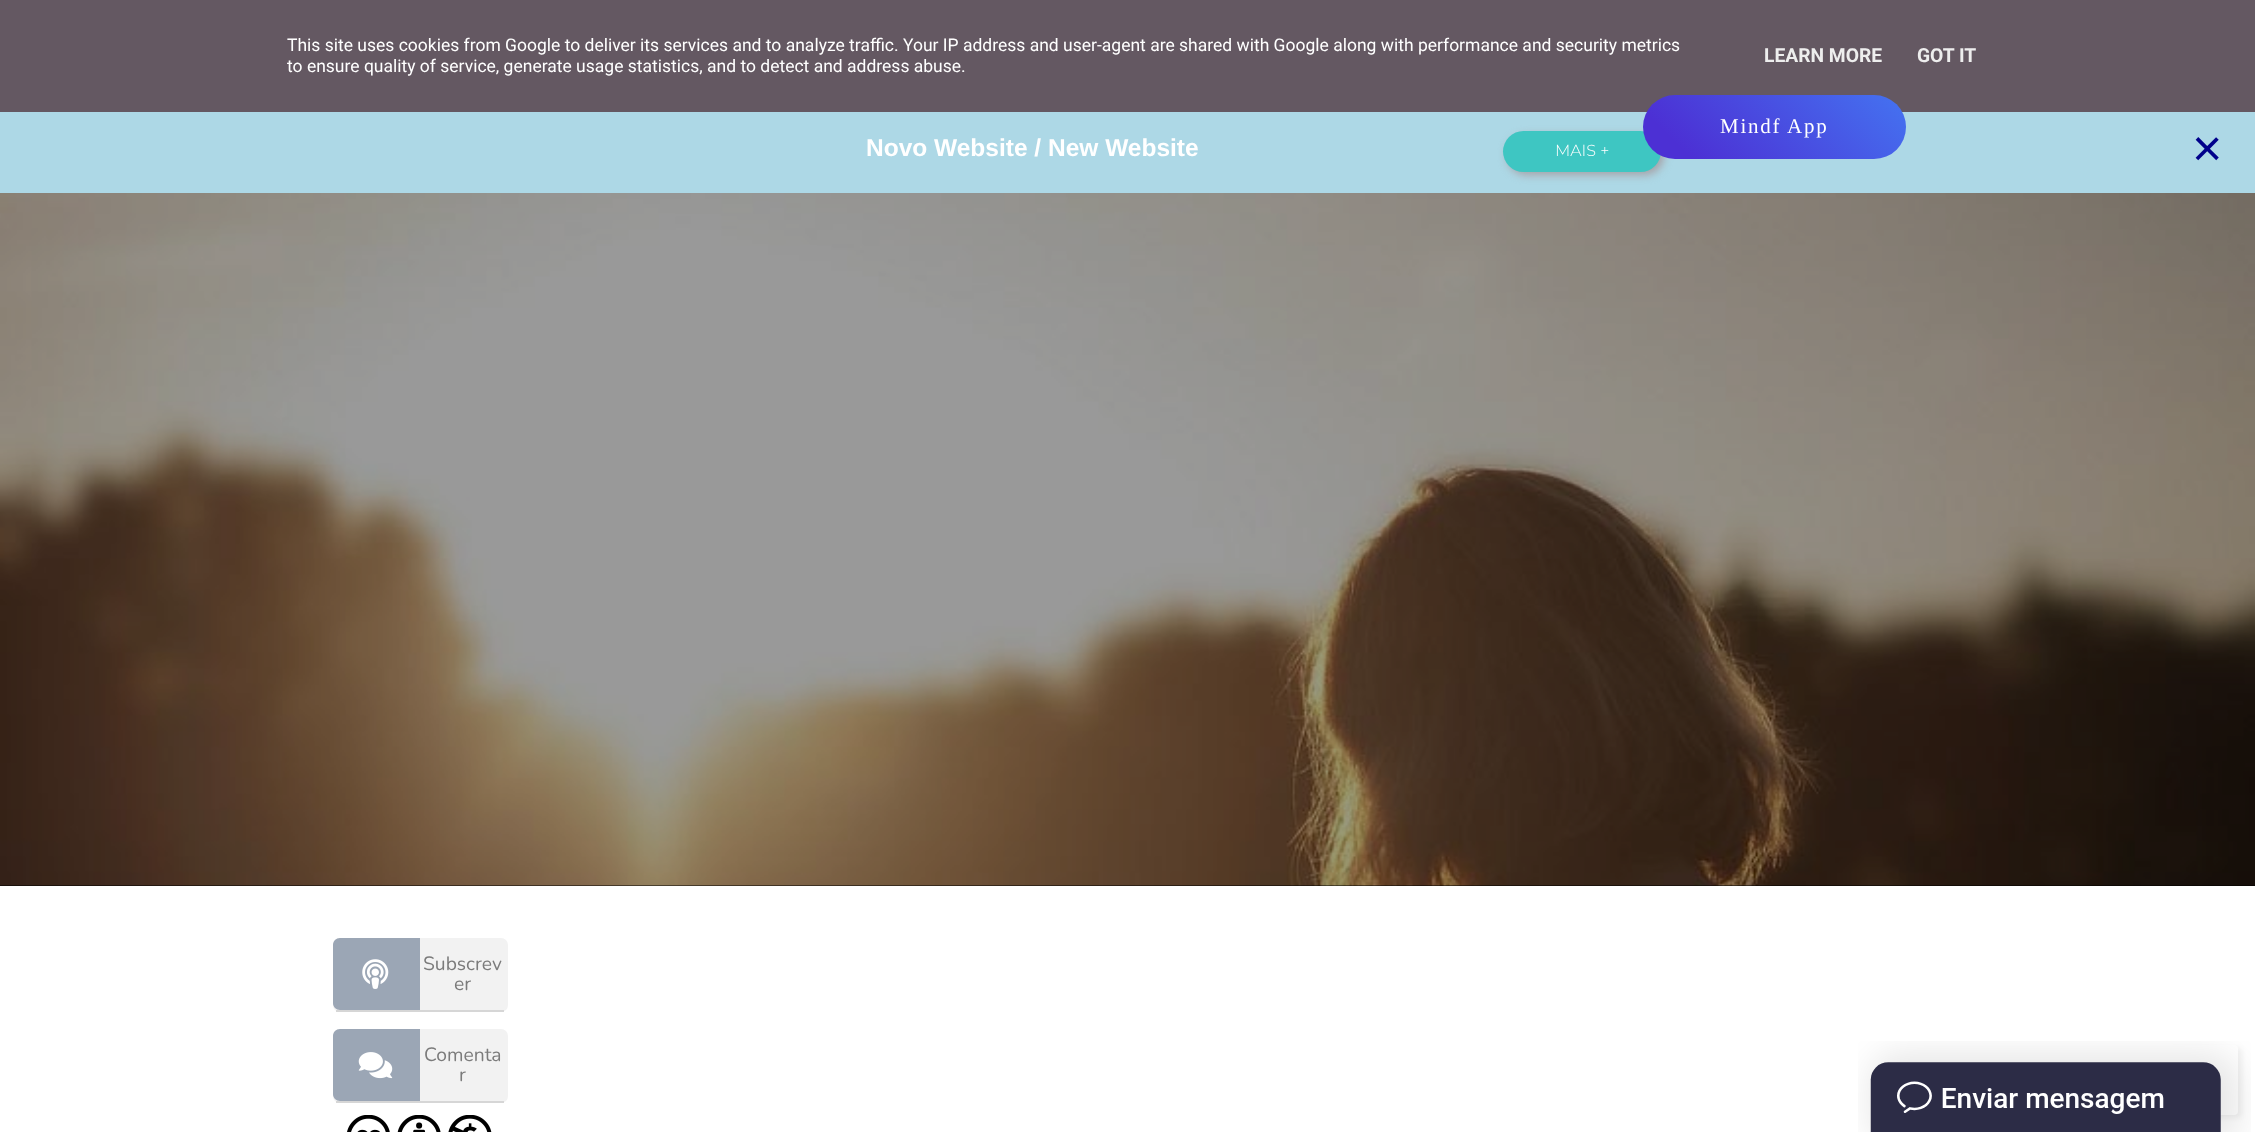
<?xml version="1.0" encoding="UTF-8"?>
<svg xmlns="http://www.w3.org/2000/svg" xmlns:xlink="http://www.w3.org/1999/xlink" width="2255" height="1132">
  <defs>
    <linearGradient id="g1" gradientUnits="userSpaceOnUse" x1="1693" y1="209" x2="1856" y2="45"><stop offset="0.15" stop-color="#4c30d4" /><stop offset="1" stop-color="#4473f1" /></linearGradient>
  </defs>
  <rect width="100%" height="100%" fill="#ffffff" />
  <rect width="2255" height="112" fill="#645862" />
  <rect y="112" width="2255" height="81" fill="#add8e6" />
  <rect x="1507" y="135" width="157" height="40" rx="20" fill="#a6a1a6" filter="blur(4.5px)" />
  <rect x="1503" y="131" width="158" height="41" rx="20.5" fill="#3ec6c2" />
  <rect x="1643" y="95" width="263" height="64" rx="32" fill="url(#g1)" />
  <rect y="193" width="2255" height="693" fill="#000000" />
  <image x="0" y="193" width="2255" height="693" xlink:href="image1.png" />
  <rect x="333" y="938" width="175" height="74" rx="7" fill="#f2f2f2" />
  <rect x="336" y="1010" width="168" height="2" fill="#d6d6d6" />
  <path d="M 340 938 h 80 v 72 h -80 c -4 0 -7 -3 -7 -7 v -58 c 0 -4 3 -7 7 -7 z" fill="#9ba6b5" />
  <image x="362" y="959" width="27" height="30" xlink:href="image2.png" />
  <rect x="333" y="1029" width="175" height="74" rx="7" fill="#f2f2f2" />
  <rect x="336" y="1101" width="168" height="2" fill="#d6d6d6" />
  <path d="M 340 1029 h 80 v 72 h -80 c -4 0 -7 -3 -7 -7 v -58 c 0 -4 3 -7 7 -7 z" fill="#9ba6b5" />
  <image x="358" y="1052" width="35" height="27" xlink:href="image3.png" />
  <image x="347" y="1115" width="43" height="17" xlink:href="image4.png" />
  <image x="397" y="1115" width="44" height="17" xlink:href="image5.png" />
  <image x="448" y="1115" width="44" height="17" xlink:href="image6.png" />
  <rect x="2172" y="1048" width="70" height="70" rx="4" fill="#000000" fill-opacity="0.05" filter="blur(2.5px)" />
  <rect x="2168" y="1045" width="70" height="70" rx="4" fill="#ffffff" />
  <image x="1858" y="1041" width="393" height="91" xlink:href="image7.png" />
  <text x="287" y="51" style="font-family: Roboto; font-size: 17.5px; fill: #ffffff">This site uses cookies from Google to deliver its services and to analyze traffic. Your IP address and user-agent are shared with Google along with performance and security metrics</text>
  <text x="287" y="72" style="font-family: Roboto; font-size: 17.5px; fill: #ffffff">to ensure quality of service, generate usage statistics, and to detect and address abuse.</text>
  <text x="1764" y="62" style="font-family: Roboto; font-size: 19.25px; font-weight: bold; fill: #eeeeee">LEARN MORE</text>
  <text x="1917" y="62" style="font-family: Roboto; font-size: 19.25px; font-weight: bold; fill: #eeeeee">GOT IT</text>
  <text x="1720" y="133" style="font-family: Liberation Serif; font-size: 21px; letter-spacing: 1.75px; fill: #ffffff">Mindf App</text>
  <text x="866" y="156" style="font-family: Liberation Sans; font-size: 24.5px; font-weight: bold; fill: #ffffff">Novo Website / New Website</text>
  <text x="1555" y="156" style="font-family: Montserrat; font-size: 16px; font-weight: 300; fill: #ffffff">MAIS +</text>
  <text x="2192" y="166" style="font-family: Liberation Sans; font-size: 52px; fill: #00008b">×</text>
  <text x="423" y="970" style="font-family: Nunito; font-size: 19.25px; font-weight: 200; fill: #7b7b7b">Subscrev</text>
  <text x="454" y="990" style="font-family: Nunito; font-size: 19.25px; font-weight: 200; fill: #7b7b7b">er</text>
  <text x="424" y="1061" style="font-family: Nunito; font-size: 19.25px; font-weight: 200; fill: #7b7b7b">Comenta</text>
  <text x="459" y="1081" style="font-family: Nunito; font-size: 19.25px; font-weight: 200; fill: #7b7b7b">r</text>
</svg>
